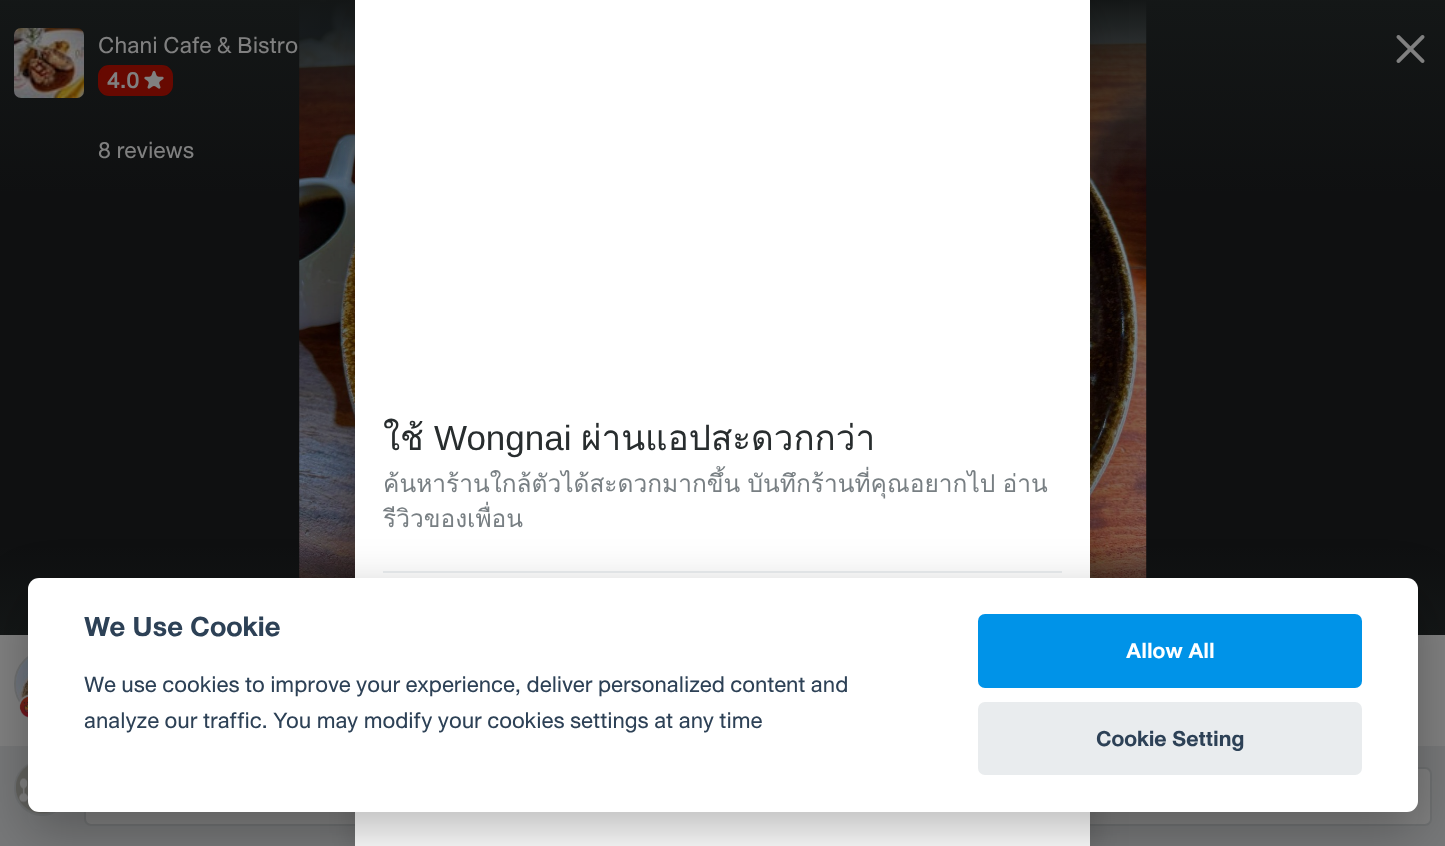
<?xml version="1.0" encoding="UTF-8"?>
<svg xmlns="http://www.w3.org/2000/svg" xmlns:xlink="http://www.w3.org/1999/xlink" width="1445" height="846">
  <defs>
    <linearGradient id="g1" gradientUnits="userSpaceOnUse" x1="723" y1="0" x2="723" y2="196"><stop offset="0" stop-color="#141717" /><stop offset="1" stop-color="#141717" stop-opacity="0" /></linearGradient>
    <linearGradient id="g2" gradientUnits="userSpaceOnUse" x1="723" y1="635" x2="723" y2="544"><stop offset="0" stop-color="#141717" /><stop offset="1" stop-color="#141717" stop-opacity="0" /></linearGradient>
  </defs>
  <rect width="100%" height="100%" fill="#808080" />
  <rect y="1" width="1445" height="633" fill="#0f1011" />
  <image x="299" y="1" width="848" height="577" xlink:href="image1.png" />
  <rect width="1445" height="192" fill="url(#g1)" />
  <image x="14" y="28" width="70" height="70" xlink:href="image2.png" />
  <rect x="99" y="66" width="73" height="29" rx="10" fill="#670901" stroke="#670901" stroke-width="2" />
  <image x="144" y="71" width="20" height="18" xlink:href="image3.png" />
  <rect y="547" width="1445" height="88" fill="url(#g2)" />
  <image x="1396" y="35" width="29" height="28" xlink:href="image4.png" />
  <circle cx="49" cy="684" r="34" fill="none" stroke="#6f7172" stroke-width="2" />
  <image x="16" y="658" width="12" height="44" xlink:href="image5.png" />
  <image x="19" y="694" width="9" height="25" xlink:href="image6.png" />
  <rect y="746" width="1445" height="100" fill="#777879" />
  <circle cx="42" cy="788" r="27" fill="none" stroke="#6f7172" stroke-width="2" />
  <image x="16" y="765" width="37" height="49" xlink:href="image7.png" />
  <rect x="85" y="768" width="1346" height="57" rx="6" fill="#808080" stroke="#6f7172" stroke-width="2" />
  <rect x="357" y="2" width="735" height="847" fill="#000000" fill-opacity="0.2" filter="blur(17.5px)" />
  <rect x="355" width="735" height="846" fill="#ffffff" />
  <rect x="383" y="571" width="679" height="2" fill="#edf0f2" />
  <rect x="28" y="595" width="1390" height="235" rx="11" fill="#020203" fill-opacity="0.28" filter="blur(26px)" />
  <rect x="28" y="578" width="1390" height="234" rx="11" fill="#ffffff" />
  <rect x="978" y="614" width="384" height="74" rx="7" fill="#0093e8" />
  <rect x="978" y="702" width="384" height="73" rx="7" fill="#e9ecee" />
  <text x="98" y="53" style="font-family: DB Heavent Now; font-size: 24.5px; fill: #808080">Chani Cafe &amp; Bistro</text>
  <text x="107" y="88" style="font-family: DB Heavent Now; font-size: 24.5px; font-weight: 500; fill: #808080">4.0</text>
  <text x="98" y="158" style="font-family: DB Heavent Now; font-size: 24.5px; fill: #808080">8 reviews</text>
  <text x="383" y="450" style="font-family: Loma; font-size: 35px; fill: #282d2e">ใช้</text>
  <text x="434" y="450" style="font-family: Liberation Sans; font-size: 35px; fill: #282d2e">Wongnai</text>
  <text x="581" y="450" style="font-family: Loma; font-size: 35px; fill: #282d2e">ผ่านแอปสะดวกกว่า</text>
  <text x="383" y="492" word-spacing="-1" style="font-family: Loma; font-size: 24.5px; fill: #787f83">ค้นหาร้านใกล้ตัวได้สะดวกมากขึ้น บันทึกร้านที่คุณอยากไป อ่าน</text>
  <text x="383" y="527" style="font-family: Loma; font-size: 24.5px; fill: #787f83">รีวิวของเพื่อน</text>
  <text x="84" y="636" style="font-family: DB Heavent Now; font-size: 29.5px; font-weight: bold; fill: #2d4156">We Use Cookie</text>
  <text x="84" y="692" style="font-family: DB Heavent Now; font-size: 23.8px; fill: #2d4156">We use cookies to improve your experience, deliver personalized content and</text>
  <text x="84" y="728" style="font-family: DB Heavent Now; font-size: 23.8px; fill: #2d4156">analyze our traffic. You may modify your cookies settings at any time</text>
  <text x="1126" y="658" style="font-family: DB Heavent Now; font-size: 23px; font-weight: bold; fill: #ffffff">Allow All</text>
  <text x="1096" y="746" style="font-family: DB Heavent Now; font-size: 23px; font-weight: bold; fill: #2d4156">Cookie Setting</text>
</svg>
